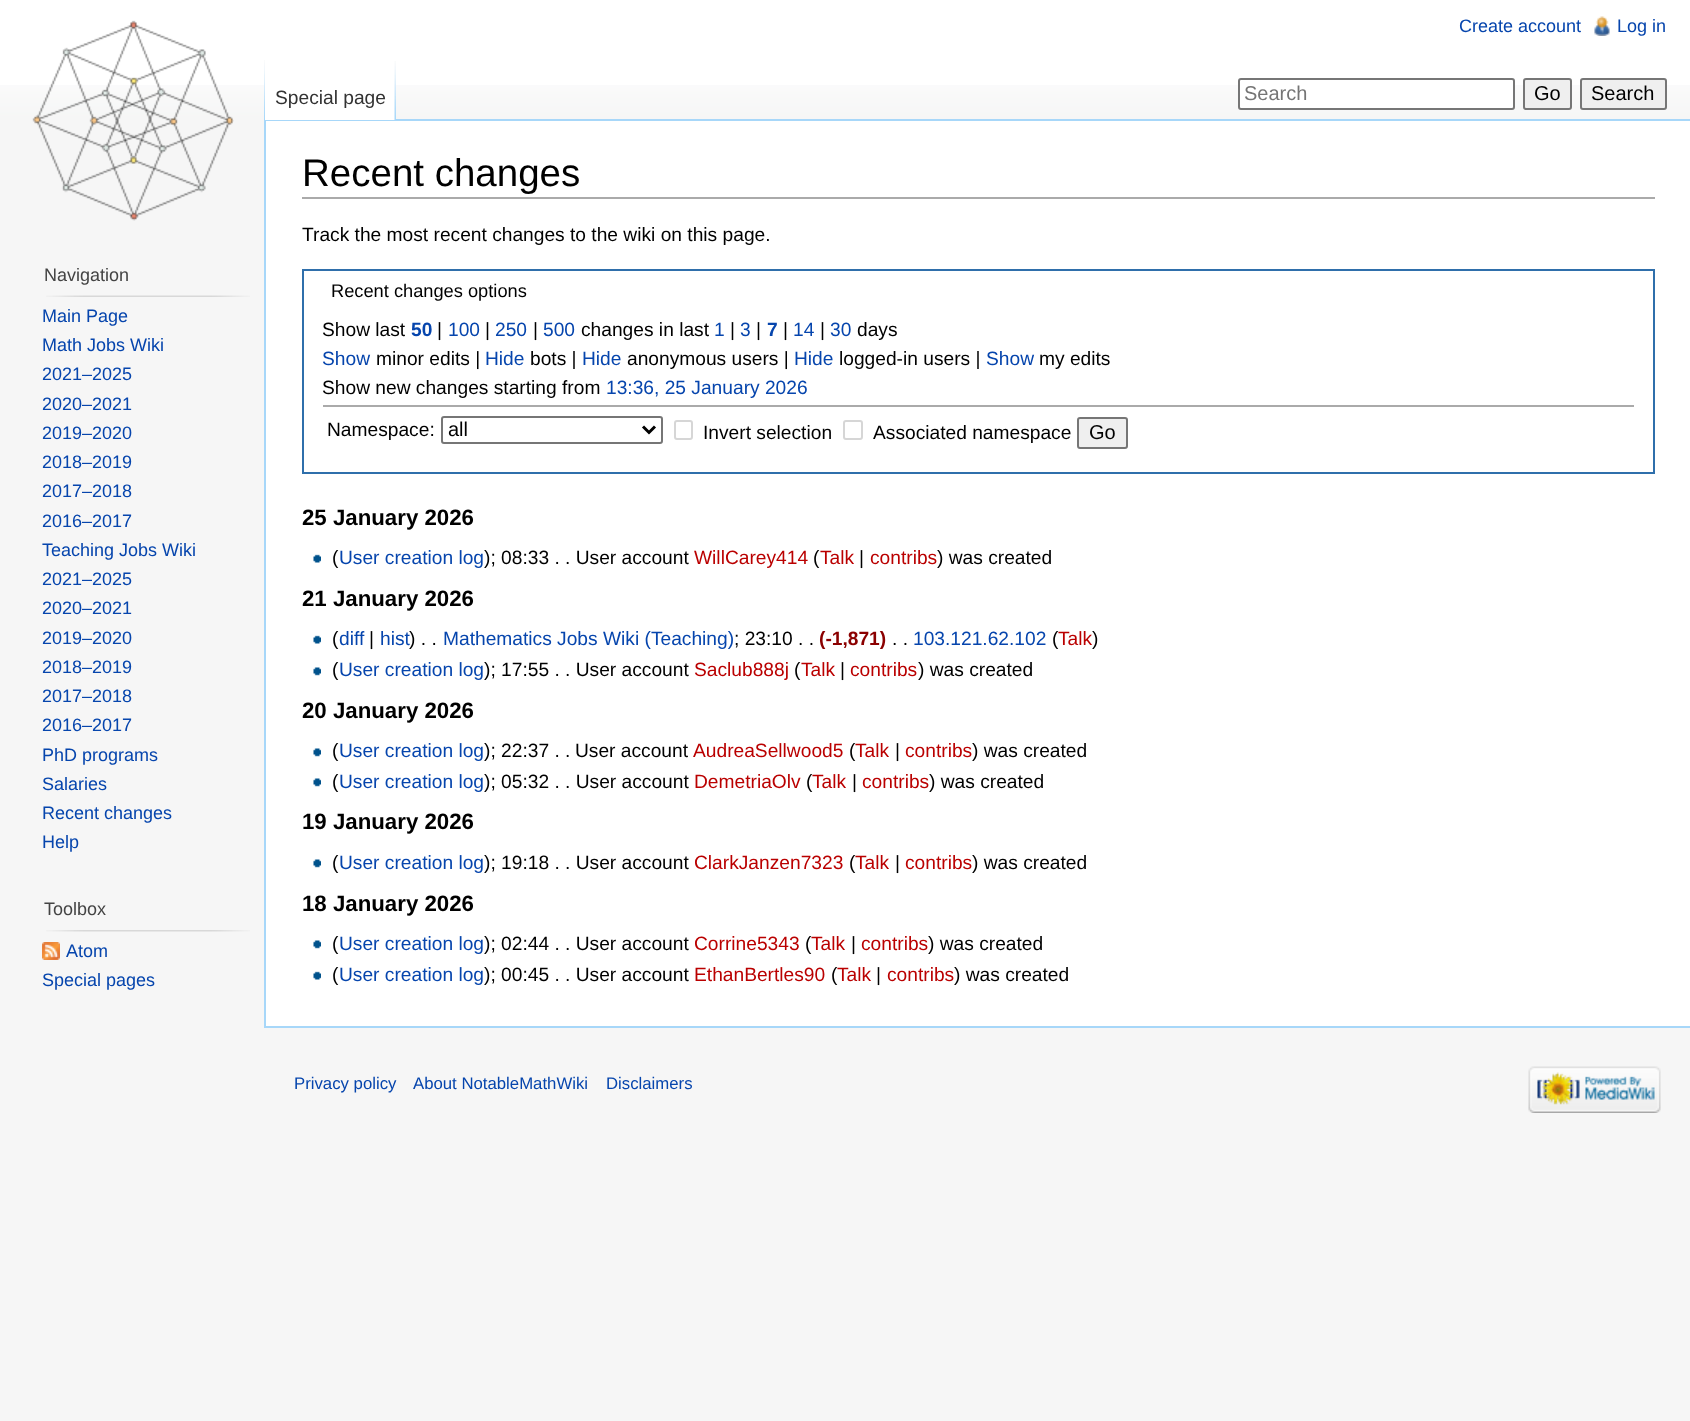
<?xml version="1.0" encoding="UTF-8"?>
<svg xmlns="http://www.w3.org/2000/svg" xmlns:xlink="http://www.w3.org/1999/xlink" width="1690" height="1421">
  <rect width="100%" height="100%" fill="#f6f6f6" />
  <rect width="1690" height="85" fill="#ffffff" />
  <image x="0" y="85" width="1690" height="35" xlink:href="image1.png" />
  <image x="1594" y="16" width="16" height="20" xlink:href="image2.png" />
  <image x="264" y="60" width="1" height="59" xlink:href="image3.png" />
  <rect x="264" y="119" width="1426" height="2" fill="#a7d7f9" />
  <rect x="264" y="1026" width="1426" height="2" fill="#a7d7f9" />
  <rect x="264" y="119" width="2" height="909" fill="#a7d7f9" />
  <rect x="265" y="85" width="131" height="35" fill="#ffffff" />
  <image x="394" y="61" width="2" height="59" xlink:href="image4.png" />
  <rect x="1239" y="79" width="275" height="30" rx="2" fill="#ffffff" stroke="#767676" stroke-width="2" />
  <rect x="1524" y="79" width="47" height="30" rx="2" fill="#efefef" stroke="#767676" stroke-width="2" />
  <rect x="1581" y="79" width="85" height="30" rx="2" fill="#efefef" stroke="#767676" stroke-width="2" />
  <image x="32" y="20" width="202" height="201" xlink:href="image5.png" />
  <image x="46" y="295" width="204" height="2" xlink:href="image6.png" />
  <image x="46" y="930" width="204" height="2" xlink:href="image7.png" />
  <image x="42" y="942" width="18" height="18" xlink:href="image8.png" />
  <rect x="266" y="121" width="1424" height="905" fill="#ffffff" />
  <rect x="302" y="197" width="1353" height="2" fill="#aaaaaa" />
  <rect x="303" y="270" width="1351" height="203" fill="none" stroke="#2f6fab" stroke-width="2" />
  <rect x="323" y="405" width="1311" height="2" fill="#aaaaaa" />
  <rect x="442" y="417" width="220" height="26" rx="2" fill="none" stroke="#767676" stroke-width="2" />
  <path d="M 643 426.5 l 6 6 l 6 -6" fill="none" stroke="#000000" stroke-width="3" />
  <rect x="675" y="421" width="17" height="18" rx="2" fill="none" stroke="#d6d6d6" stroke-width="2" />
  <rect x="844" y="421" width="18" height="18" rx="2" fill="none" stroke="#d6d6d6" stroke-width="2" />
  <rect x="1078" y="418" width="49" height="30" rx="2" fill="#efefef" stroke="#767676" stroke-width="2" />
  <image x="313" y="554" width="8" height="9" xlink:href="image9.png" />
  <image x="313" y="635" width="8" height="9" xlink:href="image9.png" />
  <image x="313" y="667" width="8" height="9" xlink:href="image10.png" />
  <image x="313" y="748" width="8" height="9" xlink:href="image10.png" />
  <image x="313" y="778" width="8" height="9" xlink:href="image10.png" />
  <image x="313" y="859" width="8" height="9" xlink:href="image10.png" />
  <image x="313" y="940" width="8" height="9" xlink:href="image10.png" />
  <image x="313" y="971" width="8" height="9" xlink:href="image9.png" />
  <image x="1528" y="1066" width="133" height="47" xlink:href="image11.png" />
  <text x="1459" y="32" style="font-family: Liberation Sans; font-size: 18px; fill: #0645ad">Create account</text>
  <text x="1617" y="32" style="font-family: Liberation Sans; font-size: 18px; fill: #0645ad">Log in</text>
  <text x="275" y="104" style="font-family: Liberation Sans; font-size: 19.2px; fill: #333333">Special page</text>
  <text x="1244" y="100" style="font-family: Liberation Sans; font-size: 20px; fill: #757575">Search</text>
  <text x="1534" y="100" style="font-family: Liberation Sans; font-size: 20px; fill: #000000">Go</text>
  <text x="1591" y="100" style="font-family: Liberation Sans; font-size: 20px; fill: #000000">Search</text>
  <text x="44" y="281" style="font-family: Liberation Sans; font-size: 18px; fill: #444444">Navigation</text>
  <text x="42" y="322" style="font-family: Liberation Sans; font-size: 18px; fill: #0645ad">Main Page</text>
  <text x="42" y="351" style="font-family: Liberation Sans; font-size: 18px; fill: #0645ad">Math Jobs Wiki</text>
  <text x="42" y="380" style="font-family: Liberation Sans; font-size: 18px; fill: #0645ad">2021–2025</text>
  <text x="42" y="410" style="font-family: Liberation Sans; font-size: 18px; fill: #0645ad">2020–2021</text>
  <text x="42" y="439" style="font-family: Liberation Sans; font-size: 18px; fill: #0645ad">2019–2020</text>
  <text x="42" y="468" style="font-family: Liberation Sans; font-size: 18px; fill: #0645ad">2018–2019</text>
  <text x="42" y="497" style="font-family: Liberation Sans; font-size: 18px; fill: #0645ad">2017–2018</text>
  <text x="42" y="527" style="font-family: Liberation Sans; font-size: 18px; fill: #0645ad">2016–2017</text>
  <text x="42" y="556" style="font-family: Liberation Sans; font-size: 18px; fill: #0645ad">Teaching Jobs Wiki</text>
  <text x="42" y="585" style="font-family: Liberation Sans; font-size: 18px; fill: #0645ad">2021–2025</text>
  <text x="42" y="614" style="font-family: Liberation Sans; font-size: 18px; fill: #0645ad">2020–2021</text>
  <text x="42" y="644" style="font-family: Liberation Sans; font-size: 18px; fill: #0645ad">2019–2020</text>
  <text x="42" y="673" style="font-family: Liberation Sans; font-size: 18px; fill: #0645ad">2018–2019</text>
  <text x="42" y="702" style="font-family: Liberation Sans; font-size: 18px; fill: #0645ad">2017–2018</text>
  <text x="42" y="731" style="font-family: Liberation Sans; font-size: 18px; fill: #0645ad">2016–2017</text>
  <text x="42" y="761" style="font-family: Liberation Sans; font-size: 18px; fill: #0645ad">PhD programs</text>
  <text x="42" y="790" style="font-family: Liberation Sans; font-size: 18px; fill: #0645ad">Salaries</text>
  <text x="42" y="819" style="font-family: Liberation Sans; font-size: 18px; fill: #0645ad">Recent changes</text>
  <text x="42" y="848" style="font-family: Liberation Sans; font-size: 18px; fill: #0645ad">Help</text>
  <text x="44" y="915" style="font-family: Liberation Sans; font-size: 18px; fill: #444444">Toolbox</text>
  <text x="66" y="957" style="font-family: Liberation Sans; font-size: 18px; fill: #0645ad">Atom</text>
  <text x="42" y="986" style="font-family: Liberation Sans; font-size: 18px; fill: #0645ad">Special pages</text>
  <text x="302" y="186" style="font-family: Liberation Sans; font-size: 38.5px; fill: #000000">Recent changes</text>
  <text x="302" y="241" style="font-family: Liberation Sans; font-size: 19.2px; fill: #000000">Track the most recent changes to the wiki on this page.</text>
  <text x="331" y="297" style="font-family: Liberation Sans; font-size: 18.25px; fill: #000000">Recent changes options</text>
  <text x="322" y="336" style="font-family: Liberation Sans; font-size: 19.2px; fill: #000000">Show last</text>
  <text x="411" y="336" style="font-family: Liberation Sans; font-size: 19.2px; font-weight: bold; fill: #0645ad">50</text>
  <text x="437" y="336" style="font-family: Liberation Sans; font-size: 19.2px; fill: #000000">|</text>
  <text x="448" y="336" style="font-family: Liberation Sans; font-size: 19.2px; fill: #0645ad">100</text>
  <text x="485" y="336" style="font-family: Liberation Sans; font-size: 19.2px; fill: #000000">|</text>
  <text x="495" y="336" style="font-family: Liberation Sans; font-size: 19.2px; fill: #0645ad">250</text>
  <text x="533" y="336" style="font-family: Liberation Sans; font-size: 19.2px; fill: #000000">|</text>
  <text x="543" y="336" style="font-family: Liberation Sans; font-size: 19.2px; fill: #0645ad">500</text>
  <text x="581" y="336" style="font-family: Liberation Sans; font-size: 19.2px; fill: #000000">changes in last</text>
  <text x="714" y="336" style="font-family: Liberation Sans; font-size: 19.2px; fill: #0645ad">1</text>
  <text x="730" y="336" style="font-family: Liberation Sans; font-size: 19.2px; fill: #000000">|</text>
  <text x="740" y="336" style="font-family: Liberation Sans; font-size: 19.2px; fill: #0645ad">3</text>
  <text x="756" y="336" style="font-family: Liberation Sans; font-size: 19.2px; fill: #000000">|</text>
  <text x="767" y="336" style="font-family: Liberation Sans; font-size: 19.2px; font-weight: bold; fill: #0645ad">7</text>
  <text x="783" y="336" style="font-family: Liberation Sans; font-size: 19.2px; fill: #000000">|</text>
  <text x="793" y="336" style="font-family: Liberation Sans; font-size: 19.2px; fill: #0645ad">14</text>
  <text x="820" y="336" style="font-family: Liberation Sans; font-size: 19.2px; fill: #000000">|</text>
  <text x="830" y="336" style="font-family: Liberation Sans; font-size: 19.2px; fill: #0645ad">30</text>
  <text x="857" y="336" style="font-family: Liberation Sans; font-size: 19.2px; fill: #000000">days</text>
  <text x="322" y="365" style="font-family: Liberation Sans; font-size: 19.2px; fill: #0645ad">Show</text>
  <text x="376" y="365" style="font-family: Liberation Sans; font-size: 19.2px; fill: #000000">minor edits |</text>
  <text x="485" y="365" style="font-family: Liberation Sans; font-size: 19.2px; fill: #0645ad">Hide</text>
  <text x="530" y="365" style="font-family: Liberation Sans; font-size: 19.2px; fill: #000000">bots |</text>
  <text x="582" y="365" style="font-family: Liberation Sans; font-size: 19.2px; fill: #0645ad">Hide</text>
  <text x="627" y="365" style="font-family: Liberation Sans; font-size: 19.2px; fill: #000000">anonymous users |</text>
  <text x="794" y="365" style="font-family: Liberation Sans; font-size: 19.2px; fill: #0645ad">Hide</text>
  <text x="839" y="365" style="font-family: Liberation Sans; font-size: 19.2px; fill: #000000">logged-in users |</text>
  <text x="986" y="365" style="font-family: Liberation Sans; font-size: 19.2px; fill: #0645ad">Show</text>
  <text x="1039" y="365" style="font-family: Liberation Sans; font-size: 19.2px; fill: #000000">my edits</text>
  <text x="322" y="394" style="font-family: Liberation Sans; font-size: 19.2px; fill: #000000">Show new changes starting from</text>
  <text x="606" y="394" style="font-family: Liberation Sans; font-size: 19.2px; fill: #0645ad">13:36, 25 January 2026</text>
  <text x="327" y="436" style="font-family: Liberation Sans; font-size: 19.2px; fill: #000000">Namespace:</text>
  <text x="448" y="436" style="font-family: Liberation Sans; font-size: 20px; fill: #000000">all</text>
  <text x="703" y="439" style="font-family: Liberation Sans; font-size: 19.2px; fill: #000000">Invert selection</text>
  <text x="873" y="439" style="font-family: Liberation Sans; font-size: 19.2px; fill: #000000">Associated namespace</text>
  <text x="1089" y="439" style="font-family: Liberation Sans; font-size: 20px; fill: #000000">Go</text>
  <text x="302" y="525" style="font-family: Liberation Sans; font-size: 22.25px; font-weight: bold; fill: #000000">25 January 2026</text>
  <text x="332" y="564" style="font-family: Liberation Sans; font-size: 19.2px; fill: #000000">(</text>
  <text x="339" y="564" style="font-family: Liberation Sans; font-size: 19.2px; fill: #0645ad">User creation log</text>
  <text x="484" y="564" style="font-family: Liberation Sans; font-size: 19.2px; fill: #000000">); 08:33 . . User account</text>
  <text x="694" y="564" style="font-family: Liberation Sans; font-size: 19.2px; fill: #ba0000">WillCarey414</text>
  <text x="813" y="564" style="font-family: Liberation Sans; font-size: 19.2px; fill: #000000">(</text>
  <text x="820" y="564" style="font-family: Liberation Sans; font-size: 19.2px; fill: #ba0000">Talk</text>
  <text x="859" y="564" style="font-family: Liberation Sans; font-size: 19.2px; fill: #000000">|</text>
  <text x="870" y="564" style="font-family: Liberation Sans; font-size: 19.2px; fill: #ba0000">contribs</text>
  <text x="937" y="564" style="font-family: Liberation Sans; font-size: 19.2px; fill: #000000">) was created </text>
  <text x="302" y="606" style="font-family: Liberation Sans; font-size: 22.25px; font-weight: bold; fill: #000000">21 January 2026</text>
  <text x="332" y="645" style="font-family: Liberation Sans; font-size: 19.2px; fill: #000000">(</text>
  <text x="339" y="645" style="font-family: Liberation Sans; font-size: 19.2px; fill: #0645ad">diff</text>
  <text x="369" y="645" style="font-family: Liberation Sans; font-size: 19.2px; fill: #000000">|</text>
  <text x="380" y="645" style="font-family: Liberation Sans; font-size: 19.2px; fill: #0645ad">hist</text>
  <text x="409" y="645" style="font-family: Liberation Sans; font-size: 19.2px; fill: #000000">) . .</text>
  <text x="443" y="645" style="font-family: Liberation Sans; font-size: 19.2px; fill: #0645ad">Mathematics Jobs Wiki (Teaching)</text>
  <text x="734" y="645" style="font-family: Liberation Sans; font-size: 19.2px; fill: #000000">; 23:10 . .</text>
  <text x="819" y="645" style="font-family: Liberation Sans; font-size: 19.2px; font-weight: bold; fill: #8b0000">(-1,871)</text>
  <text x="892" y="645" style="font-family: Liberation Sans; font-size: 19.2px; fill: #000000">. .</text>
  <text x="913" y="645" style="font-family: Liberation Sans; font-size: 19.2px; fill: #0645ad">103.121.62.102</text>
  <text x="1052" y="645" style="font-family: Liberation Sans; font-size: 19.2px; fill: #000000">(</text>
  <text x="1058" y="645" style="font-family: Liberation Sans; font-size: 19.2px; fill: #ba0000">Talk</text>
  <text x="1092" y="645" style="font-family: Liberation Sans; font-size: 19.2px; fill: #000000">)</text>
  <text x="332" y="676" style="font-family: Liberation Sans; font-size: 19.2px; fill: #000000">(</text>
  <text x="339" y="676" style="font-family: Liberation Sans; font-size: 19.2px; fill: #0645ad">User creation log</text>
  <text x="484" y="676" style="font-family: Liberation Sans; font-size: 19.2px; fill: #000000">); 17:55 . . User account</text>
  <text x="694" y="676" style="font-family: Liberation Sans; font-size: 19.2px; fill: #ba0000">Saclub888j</text>
  <text x="794" y="676" style="font-family: Liberation Sans; font-size: 19.2px; fill: #000000">(</text>
  <text x="801" y="676" style="font-family: Liberation Sans; font-size: 19.2px; fill: #ba0000">Talk</text>
  <text x="840" y="676" style="font-family: Liberation Sans; font-size: 19.2px; fill: #000000">|</text>
  <text x="850" y="676" style="font-family: Liberation Sans; font-size: 19.2px; fill: #ba0000">contribs</text>
  <text x="918" y="676" style="font-family: Liberation Sans; font-size: 19.2px; fill: #000000">) was created </text>
  <text x="302" y="718" style="font-family: Liberation Sans; font-size: 22.25px; font-weight: bold; fill: #000000">20 January 2026</text>
  <text x="332" y="757" style="font-family: Liberation Sans; font-size: 19.2px; fill: #000000">(</text>
  <text x="339" y="757" style="font-family: Liberation Sans; font-size: 19.2px; fill: #0645ad">User creation log</text>
  <text x="484" y="757" style="font-family: Liberation Sans; font-size: 19.2px; fill: #000000">); 22:37 . .</text>
  <text x="575" y="757" style="font-family: Liberation Sans; font-size: 19.2px; fill: #000000">User account</text>
  <text x="693" y="757" style="font-family: Liberation Sans; font-size: 19.2px; fill: #ba0000">AudreaSellwood5</text>
  <text x="849" y="757" style="font-family: Liberation Sans; font-size: 19.2px; fill: #000000">(</text>
  <text x="855" y="757" style="font-family: Liberation Sans; font-size: 19.2px; fill: #ba0000">Talk</text>
  <text x="895" y="757" style="font-family: Liberation Sans; font-size: 19.2px; fill: #000000">|</text>
  <text x="905" y="757" style="font-family: Liberation Sans; font-size: 19.2px; fill: #ba0000">contribs</text>
  <text x="972" y="757" style="font-family: Liberation Sans; font-size: 19.2px; fill: #000000">) was created </text>
  <text x="332" y="788" style="font-family: Liberation Sans; font-size: 19.2px; fill: #000000">(</text>
  <text x="339" y="788" style="font-family: Liberation Sans; font-size: 19.2px; fill: #0645ad">User creation log</text>
  <text x="484" y="788" style="font-family: Liberation Sans; font-size: 19.2px; fill: #000000">); 05:32 . . User account</text>
  <text x="694" y="788" style="font-family: Liberation Sans; font-size: 19.2px; fill: #ba0000">DemetriaOlv</text>
  <text x="806" y="788" style="font-family: Liberation Sans; font-size: 19.2px; fill: #000000">(</text>
  <text x="812" y="788" style="font-family: Liberation Sans; font-size: 19.2px; fill: #ba0000">Talk</text>
  <text x="852" y="788" style="font-family: Liberation Sans; font-size: 19.2px; fill: #000000">|</text>
  <text x="862" y="788" style="font-family: Liberation Sans; font-size: 19.2px; fill: #ba0000">contribs</text>
  <text x="929" y="788" style="font-family: Liberation Sans; font-size: 19.2px; fill: #000000">) was created </text>
  <text x="302" y="829" style="font-family: Liberation Sans; font-size: 22.25px; font-weight: bold; fill: #000000">19 January 2026</text>
  <text x="332" y="869" style="font-family: Liberation Sans; font-size: 19.2px; fill: #000000">(</text>
  <text x="339" y="869" style="font-family: Liberation Sans; font-size: 19.2px; fill: #0645ad">User creation log</text>
  <text x="484" y="869" style="font-family: Liberation Sans; font-size: 19.2px; fill: #000000">); 19:18 . . User account</text>
  <text x="694" y="869" style="font-family: Liberation Sans; font-size: 19.2px; fill: #ba0000">ClarkJanzen7323</text>
  <text x="849" y="869" style="font-family: Liberation Sans; font-size: 19.2px; fill: #000000">(</text>
  <text x="855" y="869" style="font-family: Liberation Sans; font-size: 19.2px; fill: #ba0000">Talk</text>
  <text x="895" y="869" style="font-family: Liberation Sans; font-size: 19.2px; fill: #000000">|</text>
  <text x="905" y="869" style="font-family: Liberation Sans; font-size: 19.2px; fill: #ba0000">contribs</text>
  <text x="972" y="869" style="font-family: Liberation Sans; font-size: 19.2px; fill: #000000">) was created </text>
  <text x="302" y="911" style="font-family: Liberation Sans; font-size: 22.25px; font-weight: bold; fill: #000000">18 January 2026</text>
  <text x="332" y="950" style="font-family: Liberation Sans; font-size: 19.2px; fill: #000000">(</text>
  <text x="339" y="950" style="font-family: Liberation Sans; font-size: 19.2px; fill: #0645ad">User creation log</text>
  <text x="484" y="950" style="font-family: Liberation Sans; font-size: 19.2px; fill: #000000">); 02:44 . . User account</text>
  <text x="694" y="950" style="font-family: Liberation Sans; font-size: 19.2px; fill: #ba0000">Corrine5343</text>
  <text x="805" y="950" style="font-family: Liberation Sans; font-size: 19.2px; fill: #000000">(</text>
  <text x="811" y="950" style="font-family: Liberation Sans; font-size: 19.2px; fill: #ba0000">Talk</text>
  <text x="851" y="950" style="font-family: Liberation Sans; font-size: 19.2px; fill: #000000">|</text>
  <text x="861" y="950" style="font-family: Liberation Sans; font-size: 19.2px; fill: #ba0000">contribs</text>
  <text x="928" y="950" style="font-family: Liberation Sans; font-size: 19.2px; fill: #000000">) was created </text>
  <text x="332" y="981" style="font-family: Liberation Sans; font-size: 19.2px; fill: #000000">(</text>
  <text x="339" y="981" style="font-family: Liberation Sans; font-size: 19.2px; fill: #0645ad">User creation log</text>
  <text x="484" y="981" style="font-family: Liberation Sans; font-size: 19.2px; fill: #000000">); 00:45 . . User account</text>
  <text x="694" y="981" style="font-family: Liberation Sans; font-size: 19.2px; fill: #ba0000">EthanBertles90</text>
  <text x="831" y="981" style="font-family: Liberation Sans; font-size: 19.2px; fill: #000000">(</text>
  <text x="837" y="981" style="font-family: Liberation Sans; font-size: 19.2px; fill: #ba0000">Talk</text>
  <text x="876" y="981" style="font-family: Liberation Sans; font-size: 19.2px; fill: #000000">|</text>
  <text x="887" y="981" style="font-family: Liberation Sans; font-size: 19.2px; fill: #ba0000">contribs</text>
  <text x="954" y="981" style="font-family: Liberation Sans; font-size: 19.2px; fill: #000000">) was created </text>
  <text x="294" y="1089" style="font-family: Liberation Sans; font-size: 16.75px; fill: #0645ad">Privacy policy</text>
  <text x="413" y="1089" style="font-family: Liberation Sans; font-size: 16.75px; fill: #0645ad">About NotableMathWiki</text>
  <text x="606" y="1089" style="font-family: Liberation Sans; font-size: 16.75px; fill: #0645ad">Disclaimers</text>
</svg>
